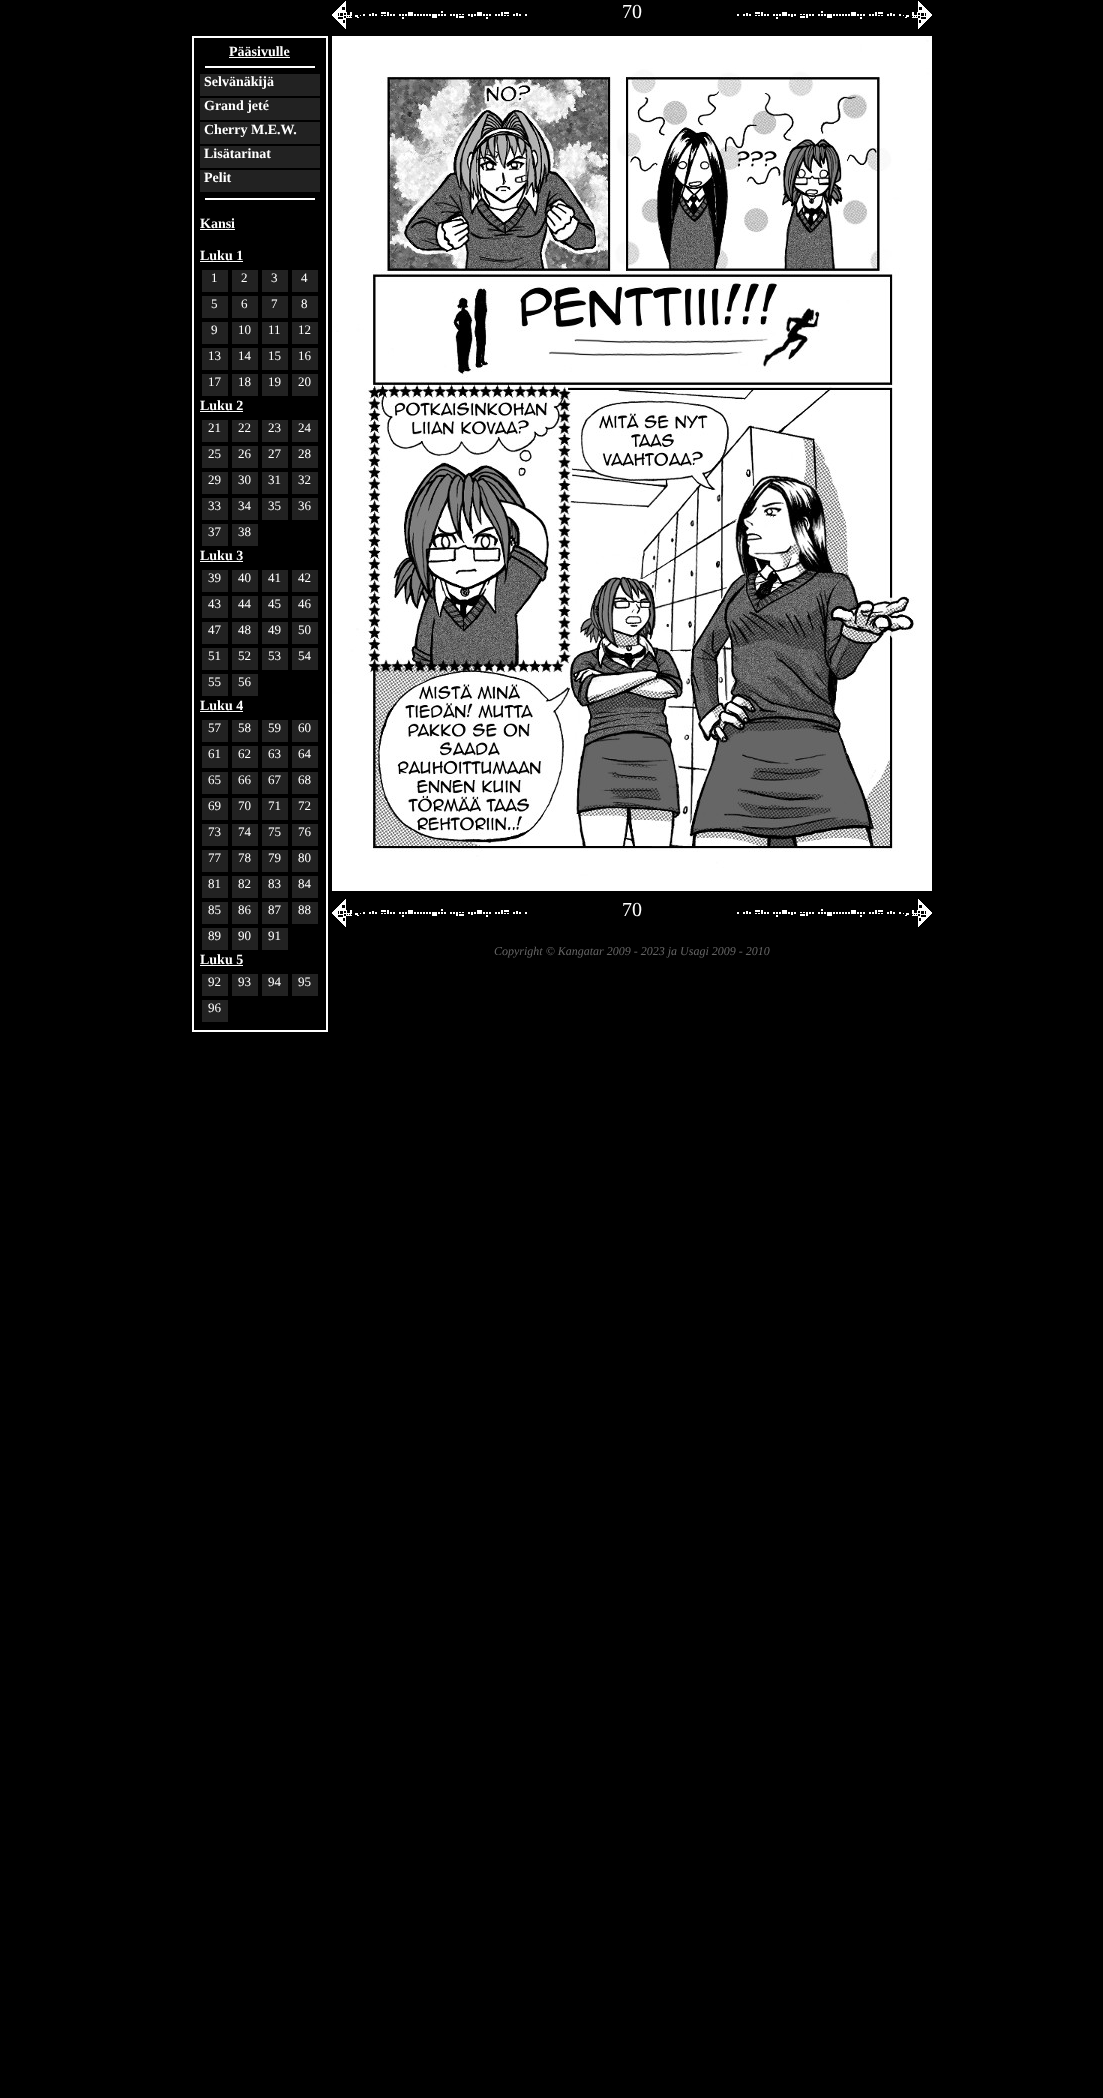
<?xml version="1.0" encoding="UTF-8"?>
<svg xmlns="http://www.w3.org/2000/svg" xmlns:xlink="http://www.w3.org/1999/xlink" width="1103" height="2098">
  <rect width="100%" height="100%" fill="#000000" />
  <image x="332" y="1" width="195" height="28" xlink:href="image1.png" />
  <image x="737" y="1" width="195" height="28" xlink:href="image2.png" />
  <rect x="193" y="37" width="134" height="994" fill="none" stroke="#ffffff" stroke-width="2" />
  <rect x="229" y="57" width="61" height="1" fill="#ffffff" />
  <rect x="205" y="66" width="110" height="2" fill="#ffffff" />
  <rect x="200" y="74" width="120" height="22" fill="#222222" />
  <rect x="200" y="98" width="120" height="22" fill="#222222" />
  <rect x="200" y="122" width="120" height="22" fill="#222222" />
  <rect x="200" y="146" width="120" height="22" fill="#222222" />
  <rect x="200" y="170" width="120" height="22" fill="#222222" />
  <rect x="205" y="198" width="110" height="2" fill="#ffffff" />
  <rect x="200" y="229" width="35" height="1" fill="#ffffff" />
  <rect x="200" y="261" width="43" height="1" fill="#ffffff" />
  <rect x="202" y="270" width="26" height="22" fill="#222222" />
  <rect x="232" y="270" width="26" height="22" fill="#222222" />
  <rect x="262" y="270" width="26" height="22" fill="#222222" />
  <rect x="292" y="270" width="26" height="22" fill="#222222" />
  <rect x="202" y="296" width="26" height="22" fill="#222222" />
  <rect x="232" y="296" width="26" height="22" fill="#222222" />
  <rect x="262" y="296" width="26" height="22" fill="#222222" />
  <rect x="292" y="296" width="26" height="22" fill="#222222" />
  <rect x="202" y="322" width="26" height="22" fill="#222222" />
  <rect x="232" y="322" width="26" height="22" fill="#222222" />
  <rect x="262" y="322" width="26" height="22" fill="#222222" />
  <rect x="292" y="322" width="26" height="22" fill="#222222" />
  <rect x="202" y="348" width="26" height="22" fill="#222222" />
  <rect x="232" y="348" width="26" height="22" fill="#222222" />
  <rect x="262" y="348" width="26" height="22" fill="#222222" />
  <rect x="292" y="348" width="26" height="22" fill="#222222" />
  <rect x="202" y="374" width="26" height="22" fill="#222222" />
  <rect x="232" y="374" width="26" height="22" fill="#222222" />
  <rect x="262" y="374" width="26" height="22" fill="#222222" />
  <rect x="292" y="374" width="26" height="22" fill="#222222" />
  <rect x="200" y="411" width="43" height="1" fill="#ffffff" />
  <rect x="202" y="420" width="26" height="22" fill="#222222" />
  <rect x="232" y="420" width="26" height="22" fill="#222222" />
  <rect x="262" y="420" width="26" height="22" fill="#222222" />
  <rect x="292" y="420" width="26" height="22" fill="#222222" />
  <rect x="202" y="446" width="26" height="22" fill="#222222" />
  <rect x="232" y="446" width="26" height="22" fill="#222222" />
  <rect x="262" y="446" width="26" height="22" fill="#222222" />
  <rect x="292" y="446" width="26" height="22" fill="#222222" />
  <rect x="202" y="472" width="26" height="22" fill="#222222" />
  <rect x="232" y="472" width="26" height="22" fill="#222222" />
  <rect x="262" y="472" width="26" height="22" fill="#222222" />
  <rect x="292" y="472" width="26" height="22" fill="#222222" />
  <rect x="202" y="498" width="26" height="22" fill="#222222" />
  <rect x="232" y="498" width="26" height="22" fill="#222222" />
  <rect x="262" y="498" width="26" height="22" fill="#222222" />
  <rect x="292" y="498" width="26" height="22" fill="#222222" />
  <rect x="202" y="524" width="26" height="22" fill="#222222" />
  <rect x="232" y="524" width="26" height="22" fill="#222222" />
  <rect x="200" y="561" width="43" height="1" fill="#ffffff" />
  <rect x="202" y="570" width="26" height="22" fill="#222222" />
  <rect x="232" y="570" width="26" height="22" fill="#222222" />
  <rect x="262" y="570" width="26" height="22" fill="#222222" />
  <rect x="292" y="570" width="26" height="22" fill="#222222" />
  <rect x="202" y="596" width="26" height="22" fill="#222222" />
  <rect x="232" y="596" width="26" height="22" fill="#222222" />
  <rect x="262" y="596" width="26" height="22" fill="#222222" />
  <rect x="292" y="596" width="26" height="22" fill="#222222" />
  <rect x="202" y="622" width="26" height="22" fill="#222222" />
  <rect x="232" y="622" width="26" height="22" fill="#222222" />
  <rect x="262" y="622" width="26" height="22" fill="#222222" />
  <rect x="292" y="622" width="26" height="22" fill="#222222" />
  <rect x="202" y="648" width="26" height="22" fill="#222222" />
  <rect x="232" y="648" width="26" height="22" fill="#222222" />
  <rect x="262" y="648" width="26" height="22" fill="#222222" />
  <rect x="292" y="648" width="26" height="22" fill="#222222" />
  <rect x="202" y="674" width="26" height="22" fill="#222222" />
  <rect x="232" y="674" width="26" height="22" fill="#222222" />
  <rect x="200" y="711" width="43" height="1" fill="#ffffff" />
  <rect x="202" y="720" width="26" height="22" fill="#222222" />
  <rect x="232" y="720" width="26" height="22" fill="#222222" />
  <rect x="262" y="720" width="26" height="22" fill="#222222" />
  <rect x="292" y="720" width="26" height="22" fill="#222222" />
  <rect x="202" y="746" width="26" height="22" fill="#222222" />
  <rect x="232" y="746" width="26" height="22" fill="#222222" />
  <rect x="262" y="746" width="26" height="22" fill="#222222" />
  <rect x="292" y="746" width="26" height="22" fill="#222222" />
  <rect x="202" y="772" width="26" height="22" fill="#222222" />
  <rect x="232" y="772" width="26" height="22" fill="#222222" />
  <rect x="262" y="772" width="26" height="22" fill="#222222" />
  <rect x="292" y="772" width="26" height="22" fill="#222222" />
  <rect x="202" y="798" width="26" height="22" fill="#222222" />
  <rect x="232" y="798" width="26" height="22" fill="#222222" />
  <rect x="262" y="798" width="26" height="22" fill="#222222" />
  <rect x="292" y="798" width="26" height="22" fill="#222222" />
  <rect x="202" y="824" width="26" height="22" fill="#222222" />
  <rect x="232" y="824" width="26" height="22" fill="#222222" />
  <rect x="262" y="824" width="26" height="22" fill="#222222" />
  <rect x="292" y="824" width="26" height="22" fill="#222222" />
  <rect x="202" y="850" width="26" height="22" fill="#222222" />
  <rect x="232" y="850" width="26" height="22" fill="#222222" />
  <rect x="262" y="850" width="26" height="22" fill="#222222" />
  <rect x="292" y="850" width="26" height="22" fill="#222222" />
  <rect x="202" y="876" width="26" height="22" fill="#222222" />
  <rect x="232" y="876" width="26" height="22" fill="#222222" />
  <rect x="262" y="876" width="26" height="22" fill="#222222" />
  <rect x="292" y="876" width="26" height="22" fill="#222222" />
  <rect x="202" y="902" width="26" height="22" fill="#222222" />
  <rect x="232" y="902" width="26" height="22" fill="#222222" />
  <rect x="262" y="902" width="26" height="22" fill="#222222" />
  <rect x="292" y="902" width="26" height="22" fill="#222222" />
  <rect x="202" y="928" width="26" height="22" fill="#222222" />
  <rect x="232" y="928" width="26" height="22" fill="#222222" />
  <rect x="262" y="928" width="26" height="22" fill="#222222" />
  <rect x="200" y="965" width="43" height="1" fill="#ffffff" />
  <rect x="202" y="974" width="26" height="22" fill="#222222" />
  <rect x="232" y="974" width="26" height="22" fill="#222222" />
  <rect x="262" y="974" width="26" height="22" fill="#222222" />
  <rect x="292" y="974" width="26" height="22" fill="#222222" />
  <rect x="202" y="1000" width="26" height="22" fill="#222222" />
  <image x="332" y="36" width="600" height="855" xlink:href="image3.png" />
  <image x="332" y="899" width="195" height="28" xlink:href="image1.png" />
  <image x="737" y="899" width="195" height="28" xlink:href="image2.png" />
  <text x="622" y="18" style="font-family: Liberation Serif; font-size: 20px; fill: #ffffff">70</text>
  <text x="229" y="56" style="font-family: Liberation Serif; font-size: 14px; font-weight: bold; fill: #ffffff">Pääsivulle</text>
  <text x="204" y="86" style="font-family: Liberation Serif; font-size: 14px; font-weight: bold; fill: #ffffff">Selvänäkijä</text>
  <text x="204" y="110" style="font-family: Liberation Serif; font-size: 14px; font-weight: bold; fill: #ffffff">Grand jeté</text>
  <text x="204" y="134" style="font-family: Liberation Serif; font-size: 14px; font-weight: bold; fill: #ffffff">Cherry M.E.W.</text>
  <text x="204" y="158" style="font-family: Liberation Serif; font-size: 14px; font-weight: bold; fill: #ffffff">Lisätarinat</text>
  <text x="204" y="182" style="font-family: Liberation Serif; font-size: 14px; font-weight: bold; fill: #ffffff">Pelit</text>
  <text x="200" y="228" style="font-family: Liberation Serif; font-size: 14px; font-weight: bold; fill: #ffffff">Kansi</text>
  <text x="200" y="260" style="font-family: Liberation Serif; font-size: 14px; font-weight: bold; fill: #ffffff">Luku 1</text>
  <text x="211" y="282" style="font-family: Liberation Serif; font-size: 13px; fill: #ffffff">1</text>
  <text x="241" y="282" style="font-family: Liberation Serif; font-size: 13px; fill: #ffffff">2</text>
  <text x="271" y="282" style="font-family: Liberation Serif; font-size: 13px; fill: #ffffff">3</text>
  <text x="301" y="282" style="font-family: Liberation Serif; font-size: 13px; fill: #ffffff">4</text>
  <text x="211" y="308" style="font-family: Liberation Serif; font-size: 13px; fill: #ffffff">5</text>
  <text x="241" y="308" style="font-family: Liberation Serif; font-size: 13px; fill: #ffffff">6</text>
  <text x="271" y="308" style="font-family: Liberation Serif; font-size: 13px; fill: #ffffff">7</text>
  <text x="301" y="308" style="font-family: Liberation Serif; font-size: 13px; fill: #ffffff">8</text>
  <text x="211" y="334" style="font-family: Liberation Serif; font-size: 13px; fill: #ffffff">9</text>
  <text x="238" y="334" style="font-family: Liberation Serif; font-size: 13px; fill: #ffffff">10</text>
  <text x="268" y="334" style="font-family: Liberation Serif; font-size: 13px; fill: #ffffff">11</text>
  <text x="298" y="334" style="font-family: Liberation Serif; font-size: 13px; fill: #ffffff">12</text>
  <text x="208" y="360" style="font-family: Liberation Serif; font-size: 13px; fill: #ffffff">13</text>
  <text x="238" y="360" style="font-family: Liberation Serif; font-size: 13px; fill: #ffffff">14</text>
  <text x="268" y="360" style="font-family: Liberation Serif; font-size: 13px; fill: #ffffff">15</text>
  <text x="298" y="360" style="font-family: Liberation Serif; font-size: 13px; fill: #ffffff">16</text>
  <text x="208" y="386" style="font-family: Liberation Serif; font-size: 13px; fill: #ffffff">17</text>
  <text x="238" y="386" style="font-family: Liberation Serif; font-size: 13px; fill: #ffffff">18</text>
  <text x="268" y="386" style="font-family: Liberation Serif; font-size: 13px; fill: #ffffff">19</text>
  <text x="298" y="386" style="font-family: Liberation Serif; font-size: 13px; fill: #ffffff">20</text>
  <text x="200" y="410" style="font-family: Liberation Serif; font-size: 14px; font-weight: bold; fill: #ffffff">Luku 2</text>
  <text x="208" y="432" style="font-family: Liberation Serif; font-size: 13px; fill: #ffffff">21</text>
  <text x="238" y="432" style="font-family: Liberation Serif; font-size: 13px; fill: #ffffff">22</text>
  <text x="268" y="432" style="font-family: Liberation Serif; font-size: 13px; fill: #ffffff">23</text>
  <text x="298" y="432" style="font-family: Liberation Serif; font-size: 13px; fill: #ffffff">24</text>
  <text x="208" y="458" style="font-family: Liberation Serif; font-size: 13px; fill: #ffffff">25</text>
  <text x="238" y="458" style="font-family: Liberation Serif; font-size: 13px; fill: #ffffff">26</text>
  <text x="268" y="458" style="font-family: Liberation Serif; font-size: 13px; fill: #ffffff">27</text>
  <text x="298" y="458" style="font-family: Liberation Serif; font-size: 13px; fill: #ffffff">28</text>
  <text x="208" y="484" style="font-family: Liberation Serif; font-size: 13px; fill: #ffffff">29</text>
  <text x="238" y="484" style="font-family: Liberation Serif; font-size: 13px; fill: #ffffff">30</text>
  <text x="268" y="484" style="font-family: Liberation Serif; font-size: 13px; fill: #ffffff">31</text>
  <text x="298" y="484" style="font-family: Liberation Serif; font-size: 13px; fill: #ffffff">32</text>
  <text x="208" y="510" style="font-family: Liberation Serif; font-size: 13px; fill: #ffffff">33</text>
  <text x="238" y="510" style="font-family: Liberation Serif; font-size: 13px; fill: #ffffff">34</text>
  <text x="268" y="510" style="font-family: Liberation Serif; font-size: 13px; fill: #ffffff">35</text>
  <text x="298" y="510" style="font-family: Liberation Serif; font-size: 13px; fill: #ffffff">36</text>
  <text x="208" y="536" style="font-family: Liberation Serif; font-size: 13px; fill: #ffffff">37</text>
  <text x="238" y="536" style="font-family: Liberation Serif; font-size: 13px; fill: #ffffff">38</text>
  <text x="200" y="560" style="font-family: Liberation Serif; font-size: 14px; font-weight: bold; fill: #ffffff">Luku 3</text>
  <text x="208" y="582" style="font-family: Liberation Serif; font-size: 13px; fill: #ffffff">39</text>
  <text x="238" y="582" style="font-family: Liberation Serif; font-size: 13px; fill: #ffffff">40</text>
  <text x="268" y="582" style="font-family: Liberation Serif; font-size: 13px; fill: #ffffff">41</text>
  <text x="298" y="582" style="font-family: Liberation Serif; font-size: 13px; fill: #ffffff">42</text>
  <text x="208" y="608" style="font-family: Liberation Serif; font-size: 13px; fill: #ffffff">43</text>
  <text x="238" y="608" style="font-family: Liberation Serif; font-size: 13px; fill: #ffffff">44</text>
  <text x="268" y="608" style="font-family: Liberation Serif; font-size: 13px; fill: #ffffff">45</text>
  <text x="298" y="608" style="font-family: Liberation Serif; font-size: 13px; fill: #ffffff">46</text>
  <text x="208" y="634" style="font-family: Liberation Serif; font-size: 13px; fill: #ffffff">47</text>
  <text x="238" y="634" style="font-family: Liberation Serif; font-size: 13px; fill: #ffffff">48</text>
  <text x="268" y="634" style="font-family: Liberation Serif; font-size: 13px; fill: #ffffff">49</text>
  <text x="298" y="634" style="font-family: Liberation Serif; font-size: 13px; fill: #ffffff">50</text>
  <text x="208" y="660" style="font-family: Liberation Serif; font-size: 13px; fill: #ffffff">51</text>
  <text x="238" y="660" style="font-family: Liberation Serif; font-size: 13px; fill: #ffffff">52</text>
  <text x="268" y="660" style="font-family: Liberation Serif; font-size: 13px; fill: #ffffff">53</text>
  <text x="298" y="660" style="font-family: Liberation Serif; font-size: 13px; fill: #ffffff">54</text>
  <text x="208" y="686" style="font-family: Liberation Serif; font-size: 13px; fill: #ffffff">55</text>
  <text x="238" y="686" style="font-family: Liberation Serif; font-size: 13px; fill: #ffffff">56</text>
  <text x="200" y="710" style="font-family: Liberation Serif; font-size: 14px; font-weight: bold; fill: #ffffff">Luku 4</text>
  <text x="208" y="732" style="font-family: Liberation Serif; font-size: 13px; fill: #ffffff">57</text>
  <text x="238" y="732" style="font-family: Liberation Serif; font-size: 13px; fill: #ffffff">58</text>
  <text x="268" y="732" style="font-family: Liberation Serif; font-size: 13px; fill: #ffffff">59</text>
  <text x="298" y="732" style="font-family: Liberation Serif; font-size: 13px; fill: #ffffff">60</text>
  <text x="208" y="758" style="font-family: Liberation Serif; font-size: 13px; fill: #ffffff">61</text>
  <text x="238" y="758" style="font-family: Liberation Serif; font-size: 13px; fill: #ffffff">62</text>
  <text x="268" y="758" style="font-family: Liberation Serif; font-size: 13px; fill: #ffffff">63</text>
  <text x="298" y="758" style="font-family: Liberation Serif; font-size: 13px; fill: #ffffff">64</text>
  <text x="208" y="784" style="font-family: Liberation Serif; font-size: 13px; fill: #ffffff">65</text>
  <text x="238" y="784" style="font-family: Liberation Serif; font-size: 13px; fill: #ffffff">66</text>
  <text x="268" y="784" style="font-family: Liberation Serif; font-size: 13px; fill: #ffffff">67</text>
  <text x="298" y="784" style="font-family: Liberation Serif; font-size: 13px; fill: #ffffff">68</text>
  <text x="208" y="810" style="font-family: Liberation Serif; font-size: 13px; fill: #ffffff">69</text>
  <text x="238" y="810" style="font-family: Liberation Serif; font-size: 13px; fill: #ffffff">70</text>
  <text x="268" y="810" style="font-family: Liberation Serif; font-size: 13px; fill: #ffffff">71</text>
  <text x="298" y="810" style="font-family: Liberation Serif; font-size: 13px; fill: #ffffff">72</text>
  <text x="208" y="836" style="font-family: Liberation Serif; font-size: 13px; fill: #ffffff">73</text>
  <text x="238" y="836" style="font-family: Liberation Serif; font-size: 13px; fill: #ffffff">74</text>
  <text x="268" y="836" style="font-family: Liberation Serif; font-size: 13px; fill: #ffffff">75</text>
  <text x="298" y="836" style="font-family: Liberation Serif; font-size: 13px; fill: #ffffff">76</text>
  <text x="208" y="862" style="font-family: Liberation Serif; font-size: 13px; fill: #ffffff">77</text>
  <text x="238" y="862" style="font-family: Liberation Serif; font-size: 13px; fill: #ffffff">78</text>
  <text x="268" y="862" style="font-family: Liberation Serif; font-size: 13px; fill: #ffffff">79</text>
  <text x="298" y="862" style="font-family: Liberation Serif; font-size: 13px; fill: #ffffff">80</text>
  <text x="208" y="888" style="font-family: Liberation Serif; font-size: 13px; fill: #ffffff">81</text>
  <text x="238" y="888" style="font-family: Liberation Serif; font-size: 13px; fill: #ffffff">82</text>
  <text x="268" y="888" style="font-family: Liberation Serif; font-size: 13px; fill: #ffffff">83</text>
  <text x="298" y="888" style="font-family: Liberation Serif; font-size: 13px; fill: #ffffff">84</text>
  <text x="208" y="914" style="font-family: Liberation Serif; font-size: 13px; fill: #ffffff">85</text>
  <text x="238" y="914" style="font-family: Liberation Serif; font-size: 13px; fill: #ffffff">86</text>
  <text x="268" y="914" style="font-family: Liberation Serif; font-size: 13px; fill: #ffffff">87</text>
  <text x="298" y="914" style="font-family: Liberation Serif; font-size: 13px; fill: #ffffff">88</text>
  <text x="208" y="940" style="font-family: Liberation Serif; font-size: 13px; fill: #ffffff">89</text>
  <text x="238" y="940" style="font-family: Liberation Serif; font-size: 13px; fill: #ffffff">90</text>
  <text x="268" y="940" style="font-family: Liberation Serif; font-size: 13px; fill: #ffffff">91</text>
  <text x="200" y="964" style="font-family: Liberation Serif; font-size: 14px; font-weight: bold; fill: #ffffff">Luku 5</text>
  <text x="208" y="986" style="font-family: Liberation Serif; font-size: 13px; fill: #ffffff">92</text>
  <text x="238" y="986" style="font-family: Liberation Serif; font-size: 13px; fill: #ffffff">93</text>
  <text x="268" y="986" style="font-family: Liberation Serif; font-size: 13px; fill: #ffffff">94</text>
  <text x="298" y="986" style="font-family: Liberation Serif; font-size: 13px; fill: #ffffff">95</text>
  <text x="208" y="1012" style="font-family: Liberation Serif; font-size: 13px; fill: #ffffff">96</text>
  <text x="622" y="916" style="font-family: Liberation Serif; font-size: 20px; fill: #ffffff">70</text>
  <text x="494" y="955" style="font-family: Liberation Serif; font-size: 12px; font-style: italic; fill: #666666">Copyright © Kangatar 2009 - 2023 ja Usagi 2009 - 2010</text>
</svg>
